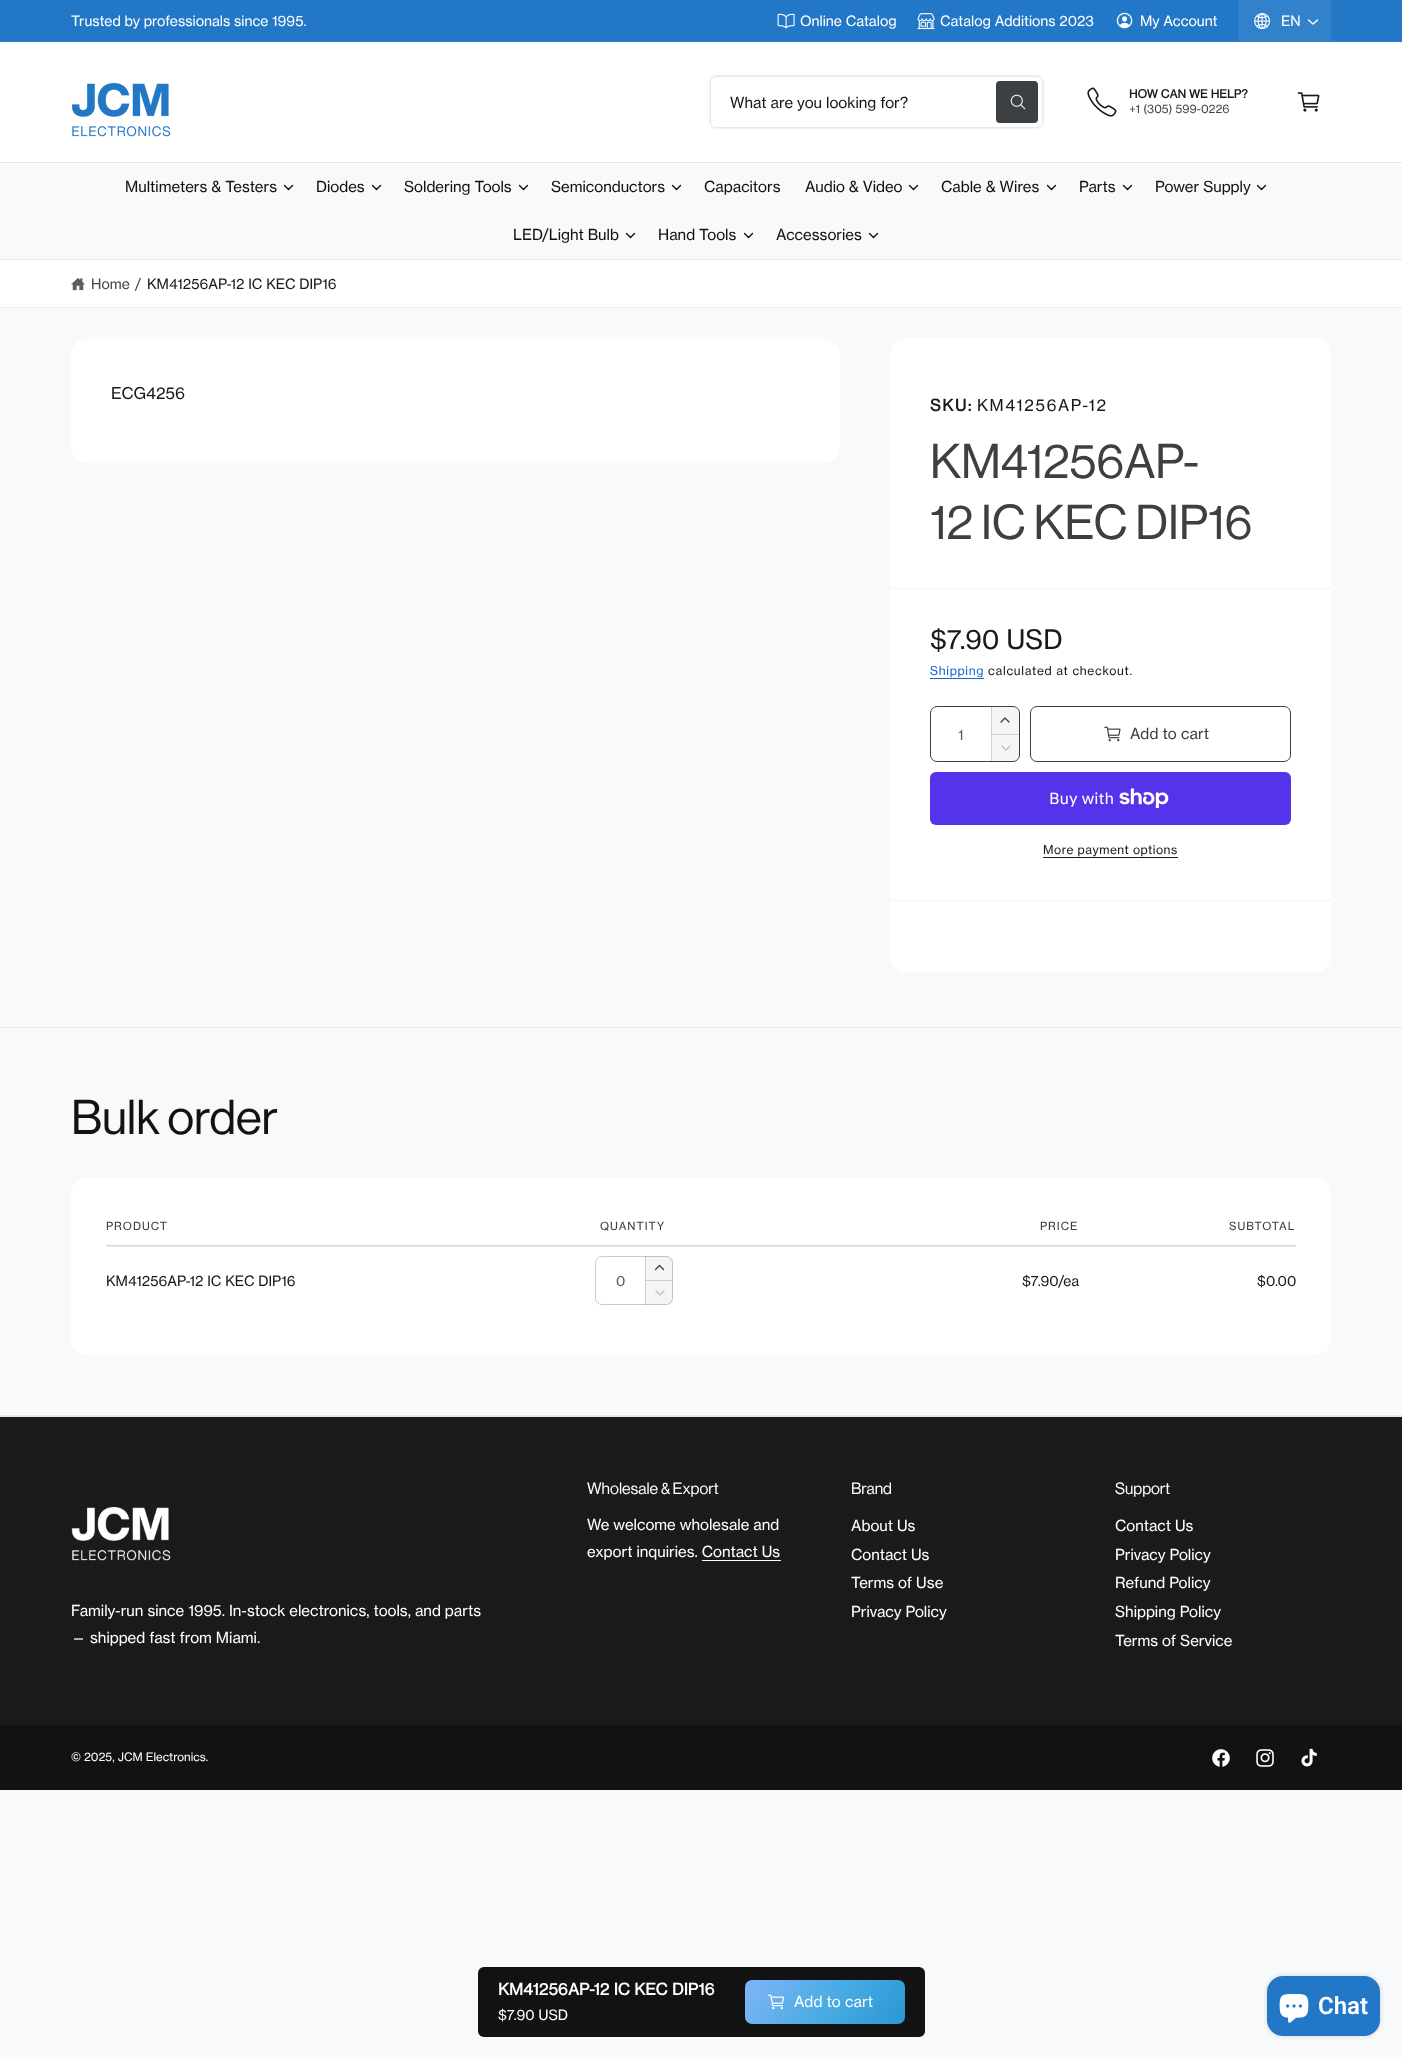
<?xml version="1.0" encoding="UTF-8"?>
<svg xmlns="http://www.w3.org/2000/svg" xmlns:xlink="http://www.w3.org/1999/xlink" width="1402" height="2057">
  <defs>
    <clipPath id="clip1"><path d="M 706 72 h 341 v 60 h -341 z m 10 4 h 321 c 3.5 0 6 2.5 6 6 v 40 c 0 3.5 -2.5 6 -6 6 h -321 c -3.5 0 -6 -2.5 -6 -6 v -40 c 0 -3.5 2.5 -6 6 -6 z" clip-rule="evenodd" /></clipPath>
    <linearGradient id="g1" gradientUnits="userSpaceOnUse" x1="889" y1="2047" x2="761" y2="1957"><stop offset="0" stop-color="#2a97d3" /><stop offset="0.46" stop-color="#48abe3" /><stop offset="0.91" stop-color="#77b3f5" /></linearGradient>
    <linearGradient id="g2" gradientUnits="userSpaceOnUse" x1="701" y1="2057" x2="701" y2="0"><stop offset="0.04" stop-color="#181a1a" /><stop offset="1" stop-color="#1e2121" /></linearGradient>
  </defs>
  <rect width="100%" height="100%" fill="#f8f9fa" />
  <rect width="1402" height="41" fill="#2277c7" />
  <rect y="41" width="1402" height="1" fill="#3482cb" />
  <image x="777" y="13" width="18" height="16" xlink:href="image1.png" />
  <image x="917" y="13" width="18" height="17" xlink:href="image2.png" />
  <image x="1116" y="12" width="17" height="17" xlink:href="image3.png" />
  <rect x="1238" width="93" height="41" fill="#3181cb" />
  <image x="1254" y="13" width="16" height="16" xlink:href="image4.png" />
  <path d="M 1308.5 20 l 4.5 4 l 4.5 -4" fill="none" stroke="#ffffff" stroke-width="1.5" stroke-linecap="round" stroke-linejoin="round" />
  <rect y="42" width="1402" height="120" fill="#ffffff" />
  <image x="71" y="82" width="100" height="55" xlink:href="image5.png" />
  <rect x="996" y="81" width="42" height="42" rx="4" fill="#3c4043" />
  <image x="1010" y="94" width="16" height="16" xlink:href="image6.png" />
  <g clip-path="url(#clip1)">
    <rect x="710" y="76" width="333" height="52" rx="6" fill="#000000" fill-opacity="0.15" filter="blur(1px)" />
  </g>
  <rect x="710.5" y="76.5" width="332" height="51" rx="5.5" fill="none" stroke="#191919" stroke-opacity="0.1" />
  <image x="1087" y="87" width="30" height="30" xlink:href="image7.png" />
  <image x="1297" y="92" width="23" height="20" xlink:href="image8.png" />
  <rect y="162" width="1402" height="1" fill="#e6e7e7" />
  <rect y="259" width="1402" height="1" fill="#e6e7e7" />
  <path d="M 284.5 185.5 l 4 4 l 4 -4" fill="none" stroke="#121212" stroke-width="1.4" stroke-linecap="round" stroke-linejoin="round" />
  <path d="M 372.5 185.5 l 4 4 l 4 -4" fill="none" stroke="#121212" stroke-width="1.4" stroke-linecap="round" stroke-linejoin="round" />
  <path d="M 519.5 185.5 l 4 4 l 4 -4" fill="none" stroke="#121212" stroke-width="1.4" stroke-linecap="round" stroke-linejoin="round" />
  <path d="M 672.5 185.5 l 4 4 l 4 -4" fill="none" stroke="#121212" stroke-width="1.4" stroke-linecap="round" stroke-linejoin="round" />
  <path d="M 909.5 185.5 l 4 4 l 4 -4" fill="none" stroke="#121212" stroke-width="1.4" stroke-linecap="round" stroke-linejoin="round" />
  <path d="M 1047.5 185.5 l 4 4 l 4 -4" fill="none" stroke="#121212" stroke-width="1.4" stroke-linecap="round" stroke-linejoin="round" />
  <path d="M 1123.5 185.5 l 4 4 l 4 -4" fill="none" stroke="#121212" stroke-width="1.4" stroke-linecap="round" stroke-linejoin="round" />
  <path d="M 1257.5 185.5 l 4 4 l 4 -4" fill="none" stroke="#121212" stroke-width="1.4" stroke-linecap="round" stroke-linejoin="round" />
  <path d="M 626.5 233.5 l 4 4 l 4 -4" fill="none" stroke="#121212" stroke-width="1.4" stroke-linecap="round" stroke-linejoin="round" />
  <path d="M 744.5 233.5 l 4 4 l 4 -4" fill="none" stroke="#121212" stroke-width="1.4" stroke-linecap="round" stroke-linejoin="round" />
  <path d="M 869.5 233.5 l 4 4 l 4 -4" fill="none" stroke="#121212" stroke-width="1.4" stroke-linecap="round" stroke-linejoin="round" />
  <rect y="260" width="1402" height="47" fill="#ffffff" />
  <rect y="307" width="1402" height="1" fill="#ededed" />
  <image x="71" y="278" width="14" height="13" xlink:href="image9.png" />
  <rect x="71" y="339" width="769" height="124" rx="16" fill="#ffffff" />
  <rect x="890" y="338" width="441" height="634" rx="16" fill="#ffffff" />
  <rect x="890" y="587" width="441" height="3" fill="#f8f9fa" />
  <rect x="930" y="678" width="54" height="1" fill="#1967d2" />
  <path d="M 991 706 h 22 c 3.5 0 6 2.5 6 6 v 23 h -28 z" fill="#f5f5f6" />
  <rect x="991" y="706" width="1" height="29" fill="#d0d1d2" />
  <rect x="991" y="734" width="28" height="1" fill="#d0d1d2" />
  <rect x="991" y="734" width="1" height="1" fill="#b2b4b5" />
  <path d="M 1009 722 l -4 -4 l -4 4" fill="none" stroke="#3c4043" stroke-width="1.3" stroke-linecap="round" stroke-linejoin="round" />
  <path d="M 991 735 h 28 v 21 c 0 3.5 -2.5 6 -6 6 h -22 z" fill="#f5f5f6" />
  <rect x="991" y="735" width="1" height="27" fill="#d0d1d2" />
  <path d="M 1002 746 l 4 4 l 4 -4" fill="none" stroke="#bebfc0" stroke-width="1.3" stroke-linecap="round" stroke-linejoin="round" />
  <rect x="930.5" y="706.5" width="89" height="55" rx="6.5" fill="none" stroke="#ffffff" />
  <rect x="930.5" y="706.5" width="89" height="55" rx="6.5" fill="none" stroke="#3c4043" />
  <image x="1104" y="726" width="17" height="16" xlink:href="image10.png" />
  <rect x="1030.5" y="706.5" width="260" height="55" rx="6.5" fill="none" stroke="#3c4043" />
  <rect x="930" y="772" width="361" height="53" rx="6" fill="#5433eb" />
  <image x="1119" y="788" width="50" height="20" xlink:href="image11.png" />
  <rect x="1043" y="857" width="135" height="1" fill="#191919" />
  <rect x="890" y="899" width="441" height="3" fill="#f8f9fa" />
  <rect x="478" y="1967" width="447" height="70" rx="6" fill="#121212" />
  <rect x="745" y="1980" width="160" height="44" rx="7" fill="url(#g1)" />
  <image x="767" y="1994" width="18" height="16" xlink:href="image12.png" />
  <rect y="1027" width="1402" height="1" fill="#e6e7e7" />
  <rect x="71" y="1178" width="1260" height="177" rx="16" fill="#ffffff" />
  <rect x="106" y="1246" width="1190" height="1" fill="#ededed" />
  <rect x="106" y="1245" width="1190" height="1" fill="#d8d8d8" />
  <path d="M 645 1256 h 22 c 3.5 0 6 2.5 6 6 v 19 h -28 z" fill="#f5f5f6" />
  <rect x="645" y="1256" width="1" height="25" fill="#d0d1d2" />
  <rect x="645" y="1280" width="28" height="1" fill="#d0d1d2" />
  <rect x="645" y="1280" width="1" height="1" fill="#b2b4b5" />
  <path d="M 663.5 1269.5 l -4 -4 l -4 4" fill="none" stroke="#3c4043" stroke-width="1.3" stroke-linecap="round" stroke-linejoin="round" />
  <path d="M 645 1281 h 28 v 18 c 0 3.5 -2.5 6 -6 6 h -22 z" fill="#f5f5f6" />
  <rect x="645" y="1281" width="1" height="24" fill="#d0d1d2" />
  <path d="M 656 1291 l 4 4 l 4 -4" fill="none" stroke="#bebfc0" stroke-width="1.3" stroke-linecap="round" stroke-linejoin="round" />
  <rect x="595.5" y="1256.5" width="77" height="48" rx="6.5" fill="none" stroke="#3c4043" stroke-opacity="0.28" />
  <rect y="1415" width="1402" height="2" fill="#e6e7e7" />
  <rect y="1417" width="1402" height="308" fill="url(#g2)" />
  <image x="71" y="1507" width="100" height="54" xlink:href="image13.png" />
  <rect x="702" y="1560" width="79" height="1" fill="#ffffff" />
  <rect y="1725" width="1402" height="65" fill="#121212" />
  <image x="1212" y="1749" width="18" height="18" xlink:href="image14.png" />
  <image x="1256" y="1749" width="18" height="18" xlink:href="image15.png" />
  <image x="1301" y="1748" width="16" height="19" xlink:href="image16.png" />
  <rect x="1267" y="1976" width="113" height="60" rx="16" fill="#000000" fill-opacity="0.15" filter="blur(2.5px)" />
  <rect x="1267" y="1976" width="113" height="60" rx="16" fill="#2277c7" />
  <image x="1279" y="1994" width="30" height="29" xlink:href="image17.png" />
  <text x="71" y="26" style="font-family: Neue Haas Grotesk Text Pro; font-size: 14px; fill: #ffffff">Trusted by professionals since 1995.</text>
  <text x="800" y="26" style="font-family: Neue Haas Grotesk Text Pro; font-size: 14px; fill: #ffffff">Online Catalog</text>
  <text x="940" y="26" style="font-family: Neue Haas Grotesk Text Pro; font-size: 14px; fill: #ffffff">Catalog Additions 2023</text>
  <text x="1140" y="26" style="font-family: Neue Haas Grotesk Text Pro; font-size: 14px; fill: #ffffff">My Account</text>
  <text x="1281" y="26" style="font-family: Neue Haas Grotesk Text Pro; font-size: 14px; fill: #ffffff">EN</text>
  <text x="730" y="108" style="font-family: Neue Haas Grotesk Text Pro; font-size: 15px; fill: #191919">What are you looking for?</text>
  <text x="1129" y="98" style="font-family: Neue Haas Grotesk Text Pro; font-size: 11.5px; font-weight: bold; fill: #191919">HOW CAN WE HELP?</text>
  <text x="1129" y="113" style="font-family: Neue Haas Grotesk Text Pro; font-size: 11.5px; fill: #474747">+1 (305) 599-0226</text>
  <text x="125" y="192" style="font-family: Neue Haas Grotesk Text Pro; font-size: 15px; fill: #121212">Multimeters &amp; Testers</text>
  <text x="316" y="192" style="font-family: Neue Haas Grotesk Text Pro; font-size: 15px; fill: #121212">Diodes</text>
  <text x="404" y="192" style="font-family: Neue Haas Grotesk Text Pro; font-size: 15px; fill: #121212">Soldering Tools</text>
  <text x="551" y="192" style="font-family: Neue Haas Grotesk Text Pro; font-size: 15px; fill: #121212">Semiconductors</text>
  <text x="704" y="192" style="font-family: Neue Haas Grotesk Text Pro; font-size: 15px; fill: #121212">Capacitors</text>
  <text x="805" y="192" style="font-family: Neue Haas Grotesk Text Pro; font-size: 15px; fill: #121212">Audio &amp; Video</text>
  <text x="941" y="192" style="font-family: Neue Haas Grotesk Text Pro; font-size: 15px; fill: #121212">Cable &amp; Wires</text>
  <text x="1079" y="192" style="font-family: Neue Haas Grotesk Text Pro; font-size: 15px; fill: #121212">Parts</text>
  <text x="1155" y="192" style="font-family: Neue Haas Grotesk Text Pro; font-size: 15px; fill: #121212">Power Supply</text>
  <text x="513" y="240" style="font-family: Neue Haas Grotesk Text Pro; font-size: 15px; fill: #121212">LED/Light Bulb</text>
  <text x="658" y="240" style="font-family: Neue Haas Grotesk Text Pro; font-size: 15px; fill: #121212">Hand Tools</text>
  <text x="776" y="240" style="font-family: Neue Haas Grotesk Text Pro; font-size: 15px; fill: #121212">Accessories</text>
  <text x="91" y="289" style="font-family: Neue Haas Grotesk Text Pro; font-size: 14px; fill: #474747">Home</text>
  <text x="135" y="289" style="font-family: Neue Haas Grotesk Text Pro; font-size: 14px; fill: #474747">/</text>
  <text x="147" y="289" style="font-family: Neue Haas Grotesk Text Pro; font-size: 14px; fill: #191919">KM41256AP-12 IC KEC DIP16</text>
  <text x="111" y="399" style="font-family: Neue Haas Grotesk Text Pro; font-size: 16px; fill: #191919">ECG4256</text>
  <text x="930" y="411" style="font-family: Neue Haas Grotesk Text Pro; font-size: 16px; font-weight: bold; letter-spacing: 1.6px; fill: #191919">SKU:</text>
  <text x="977" y="411" style="font-family: Neue Haas Grotesk Text Pro; font-size: 16px; letter-spacing: 1.6px; fill: #191919">KM41256AP-12</text>
  <text x="930" y="478" style="font-family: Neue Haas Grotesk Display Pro; font-size: 48px; font-weight: 500; fill: #3c4043">KM41256AP-</text>
  <text x="930" y="539" style="font-family: Neue Haas Grotesk Display Pro; font-size: 48px; font-weight: 500; fill: #3c4043">12 IC KEC DIP16</text>
  <text x="930" y="649" style="font-family: Neue Haas Grotesk Text Pro; font-size: 26.5px; fill: #191919">$7.90 USD</text>
  <text x="930" y="675" style="font-family: Neue Haas Grotesk Text Pro; font-size: 12px; letter-spacing: 0.7px; fill: #1967d2">Shipping</text>
  <text x="988" y="675" style="font-family: Neue Haas Grotesk Text Pro; font-size: 12px; letter-spacing: 0.7px; fill: #191919">calculated at checkout.</text>
  <text x="958" y="740" style="font-family: Neue Haas Grotesk Text Pro; font-size: 14px; fill: #595d5f">1</text>
  <text x="1130" y="739" style="font-family: Neue Haas Grotesk Text Pro; font-size: 15px; letter-spacing: 0.1px; fill: #3c4043">Add to cart</text>
  <text x="1049" y="804" style="font-family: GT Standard; font-size: 16px; fill: #ffffff">Buy with</text>
  <text x="1043" y="854" style="font-family: Neue Haas Grotesk Text Pro; font-size: 12px; letter-spacing: 0.5px; fill: #191919">More payment options</text>
  <text x="498" y="1995" style="font-family: Neue Haas Grotesk Text Pro; font-size: 16px; font-weight: bold; fill: #ffffff">KM41256AP-12 IC KEC DIP16</text>
  <text x="498" y="2020" style="font-family: Neue Haas Grotesk Text Pro; font-size: 14px; fill: #ffffff">$7.90 USD</text>
  <text x="794" y="2007" style="font-family: Neue Haas Grotesk Text Pro; font-size: 15px; letter-spacing: 0.1px; fill: #ffffff">Add to cart</text>
  <text x="71" y="1134" style="font-family: Neue Haas Grotesk Display Pro; font-size: 48px; font-weight: 500; fill: #121212">Bulk order</text>
  <text x="106" y="1230" style="font-family: Neue Haas Grotesk Text Pro; font-size: 11px; letter-spacing: 1px; fill: #3c3c3c">PRODUCT</text>
  <text x="600" y="1230" style="font-family: Neue Haas Grotesk Text Pro; font-size: 11px; letter-spacing: 1px; fill: #3c3c3c">QUANTITY</text>
  <text x="1040" y="1230" style="font-family: Neue Haas Grotesk Text Pro; font-size: 11px; letter-spacing: 1px; fill: #3c3c3c">PRICE</text>
  <text x="1229" y="1230" style="font-family: Neue Haas Grotesk Text Pro; font-size: 11px; letter-spacing: 1px; fill: #3c3c3c">SUBTOTAL</text>
  <text x="106" y="1286" style="font-family: Neue Haas Grotesk Text Pro; font-size: 14px; fill: #191919">KM41256AP-12 IC KEC DIP16</text>
  <text x="616" y="1286" style="font-family: Neue Haas Grotesk Text Pro; font-size: 14px; fill: #595d5f">0</text>
  <text x="1022" y="1286" style="font-family: Neue Haas Grotesk Text Pro; font-size: 14px; fill: #191919">$7.90/ea</text>
  <text x="1257" y="1286" style="font-family: Neue Haas Grotesk Text Pro; font-size: 14px; fill: #191919">$0.00</text>
  <text x="71" y="1616" style="font-family: Neue Haas Grotesk Text Pro; font-size: 15px; fill: #ffffff">Family-run since 1995. In-stock electronics, tools, and parts</text>
  <text x="71" y="1643" style="font-family: Neue Haas Grotesk Text Pro; font-size: 15px; fill: #ffffff">— shipped fast from Miami.</text>
  <text x="587" y="1494" style="font-family: Neue Haas Grotesk Display Pro; font-size: 16px; font-weight: 500; fill: #ffffff">Wholesale &amp; Export</text>
  <text x="587" y="1530" style="font-family: Neue Haas Grotesk Text Pro; font-size: 15px; fill: #ffffff">We welcome wholesale and</text>
  <text x="587" y="1557" style="font-family: Neue Haas Grotesk Text Pro; font-size: 15px; fill: #ffffff">export inquiries. Contact Us</text>
  <text x="851" y="1494" style="font-family: Neue Haas Grotesk Display Pro; font-size: 16px; font-weight: 500; fill: #ffffff">Brand</text>
  <text x="851" y="1531" style="font-family: Neue Haas Grotesk Text Pro; font-size: 15px; fill: #ffffff">About Us</text>
  <text x="851" y="1560" style="font-family: Neue Haas Grotesk Text Pro; font-size: 15px; fill: #ffffff">Contact Us</text>
  <text x="851" y="1588" style="font-family: Neue Haas Grotesk Text Pro; font-size: 15px; fill: #ffffff">Terms of Use</text>
  <text x="851" y="1617" style="font-family: Neue Haas Grotesk Text Pro; font-size: 15px; fill: #ffffff">Privacy Policy</text>
  <text x="1115" y="1494" style="font-family: Neue Haas Grotesk Display Pro; font-size: 16px; font-weight: 500; fill: #ffffff">Support</text>
  <text x="1115" y="1531" style="font-family: Neue Haas Grotesk Text Pro; font-size: 15px; fill: #ffffff">Contact Us</text>
  <text x="1115" y="1560" style="font-family: Neue Haas Grotesk Text Pro; font-size: 15px; fill: #ffffff">Privacy Policy</text>
  <text x="1115" y="1588" style="font-family: Neue Haas Grotesk Text Pro; font-size: 15px; fill: #ffffff">Refund Policy</text>
  <text x="1115" y="1617" style="font-family: Neue Haas Grotesk Text Pro; font-size: 15px; fill: #ffffff">Shipping Policy</text>
  <text x="1115" y="1646" style="font-family: Neue Haas Grotesk Text Pro; font-size: 15px; fill: #ffffff">Terms of Service</text>
  <text x="71" y="1761" style="font-family: Neue Haas Grotesk Text Pro; font-size: 11.5px; fill: #ffffff">© 2025, JCM Electronics.</text>
  <text x="1318" y="2014" style="font-family: Roboto; font-size: 24px; font-weight: 600; fill: #ffffff">Chat</text>
</svg>
